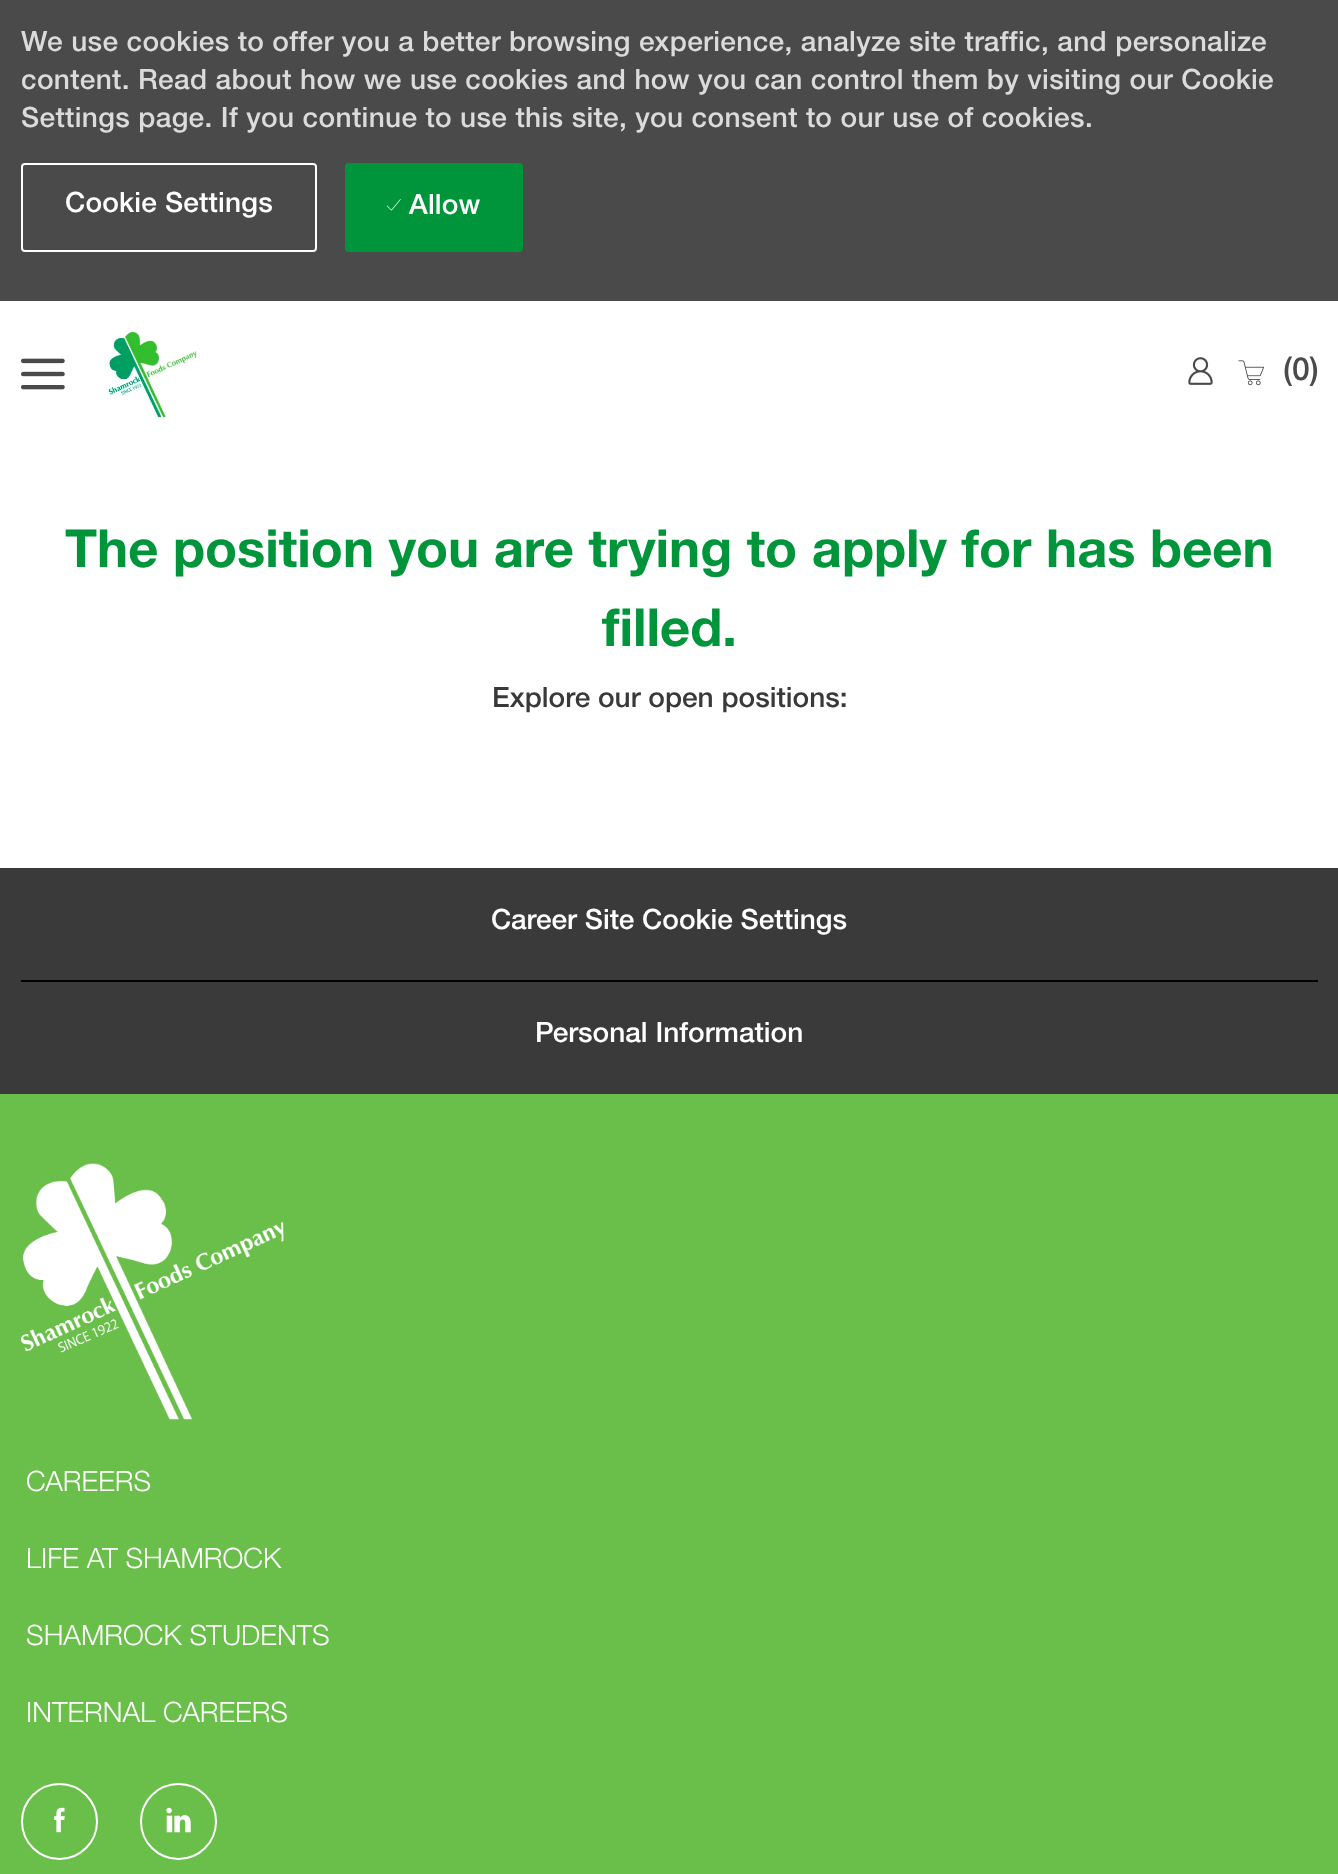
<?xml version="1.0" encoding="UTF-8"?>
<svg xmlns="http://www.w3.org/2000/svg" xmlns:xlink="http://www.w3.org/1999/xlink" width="1338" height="1874">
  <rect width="100%" height="100%" fill="#ffffff" />
  <rect width="1338" height="301" fill="#4a4a4a" />
  <rect x="22" y="164" width="294" height="87" rx="3" fill="none" stroke="#ffffff" stroke-width="2" />
  <rect x="345" y="163" width="178" height="89" rx="4" fill="#00953b" />
  <image x="386" y="199" width="15" height="12" xlink:href="image1.png" />
  <image x="21" y="358" width="44" height="32" xlink:href="image2.png" />
  <image x="107" y="330" width="90" height="89" xlink:href="image3.png" />
  <image x="1188" y="357" width="25" height="28" xlink:href="image4.png" />
  <image x="1238" y="360" width="26" height="26" xlink:href="image5.png" />
  <rect y="1094" width="1338" height="780" fill="#6abf4b" />
  <rect y="868" width="1338" height="226" fill="#3a3a3a" />
  <rect x="21" y="980" width="1297" height="2" fill="#000000" />
  <image x="21" y="1163" width="263" height="257" xlink:href="image6.png" />
  <circle cx="59.5" cy="1821.5" r="37.5" fill="none" stroke="#ffffff" stroke-width="2" />
  <image x="54" y="1807" width="11" height="26" xlink:href="image7.png" />
  <circle cx="178.5" cy="1821.5" r="37.5" fill="none" stroke="#ffffff" stroke-width="2" />
  <image x="166" y="1807" width="25" height="26" xlink:href="image8.png" />
  <text x="21" y="51" style="font-family: 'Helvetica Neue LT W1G'; font-size: 28px; font-weight: 500; letter-spacing: 0.35px; fill: #dbdbdb">We use cookies to offer you a better browsing experience, analyze site traffic, and personalize</text>
  <text x="21" y="89" style="font-family: 'Helvetica Neue LT W1G'; font-size: 28px; font-weight: 500; letter-spacing: 0.35px; fill: #dbdbdb">content. Read about how we use cookies and how you can control them by visiting our Cookie</text>
  <text x="21" y="127" style="font-family: 'Helvetica Neue LT W1G'; font-size: 28px; font-weight: 500; letter-spacing: 0.35px; fill: #dbdbdb">Settings page. If you continue to use this site, you consent to our use of cookies.</text>
  <text x="65" y="212" style="font-family: 'Helvetica Neue LT W1G'; font-size: 28px; font-weight: 500; letter-spacing: 0.2px; fill: #ffffff">Cookie Settings</text>
  <text x="409" y="214" style="font-family: 'Helvetica Neue LT W1G'; font-size: 28px; font-weight: 500; letter-spacing: 0.2px; fill: #ffffff">Allow</text>
  <text x="1283" y="380" style="font-family: 'Helvetica Neue LT W1G'; font-size: 32px; font-weight: 500; fill: #4a4a4a">(0)</text>
  <text x="65" y="567" style="font-family: 'Helvetica Neue LT W1G'; font-size: 52.5px; font-weight: bold; fill: #00953b">The position you are trying to apply for has been</text>
  <text x="602" y="646" style="font-family: 'Helvetica Neue LT W1G'; font-size: 52.5px; font-weight: bold; fill: #00953b">filled.</text>
  <text x="492" y="707" style="font-family: 'Helvetica Neue LT W1G'; font-size: 28px; font-weight: 500; fill: #393939">Explore our open positions:</text>
  <text x="491" y="929" style="font-family: 'Helvetica Neue LT W1G'; font-size: 28px; font-weight: 500; fill: #ffffff">Career Site Cookie Settings</text>
  <text x="535" y="1042" style="font-family: 'Helvetica Neue LT W1G'; font-size: 28px; font-weight: 500; fill: #ffffff">Personal Information</text>
  <text x="26" y="1491" style="font-family: 'Helvetica Neue LT W1G'; font-size: 28px; font-weight: 300; fill: #ffffff">CAREERS</text>
  <text x="26" y="1568" style="font-family: 'Helvetica Neue LT W1G'; font-size: 28px; font-weight: 300; fill: #ffffff">LIFE AT SHAMROCK</text>
  <text x="26" y="1645" style="font-family: 'Helvetica Neue LT W1G'; font-size: 28px; font-weight: 300; fill: #ffffff">SHAMROCK STUDENTS</text>
  <text x="26" y="1722" style="font-family: 'Helvetica Neue LT W1G'; font-size: 28px; font-weight: 300; fill: #ffffff">INTERNAL CAREERS</text>
</svg>
